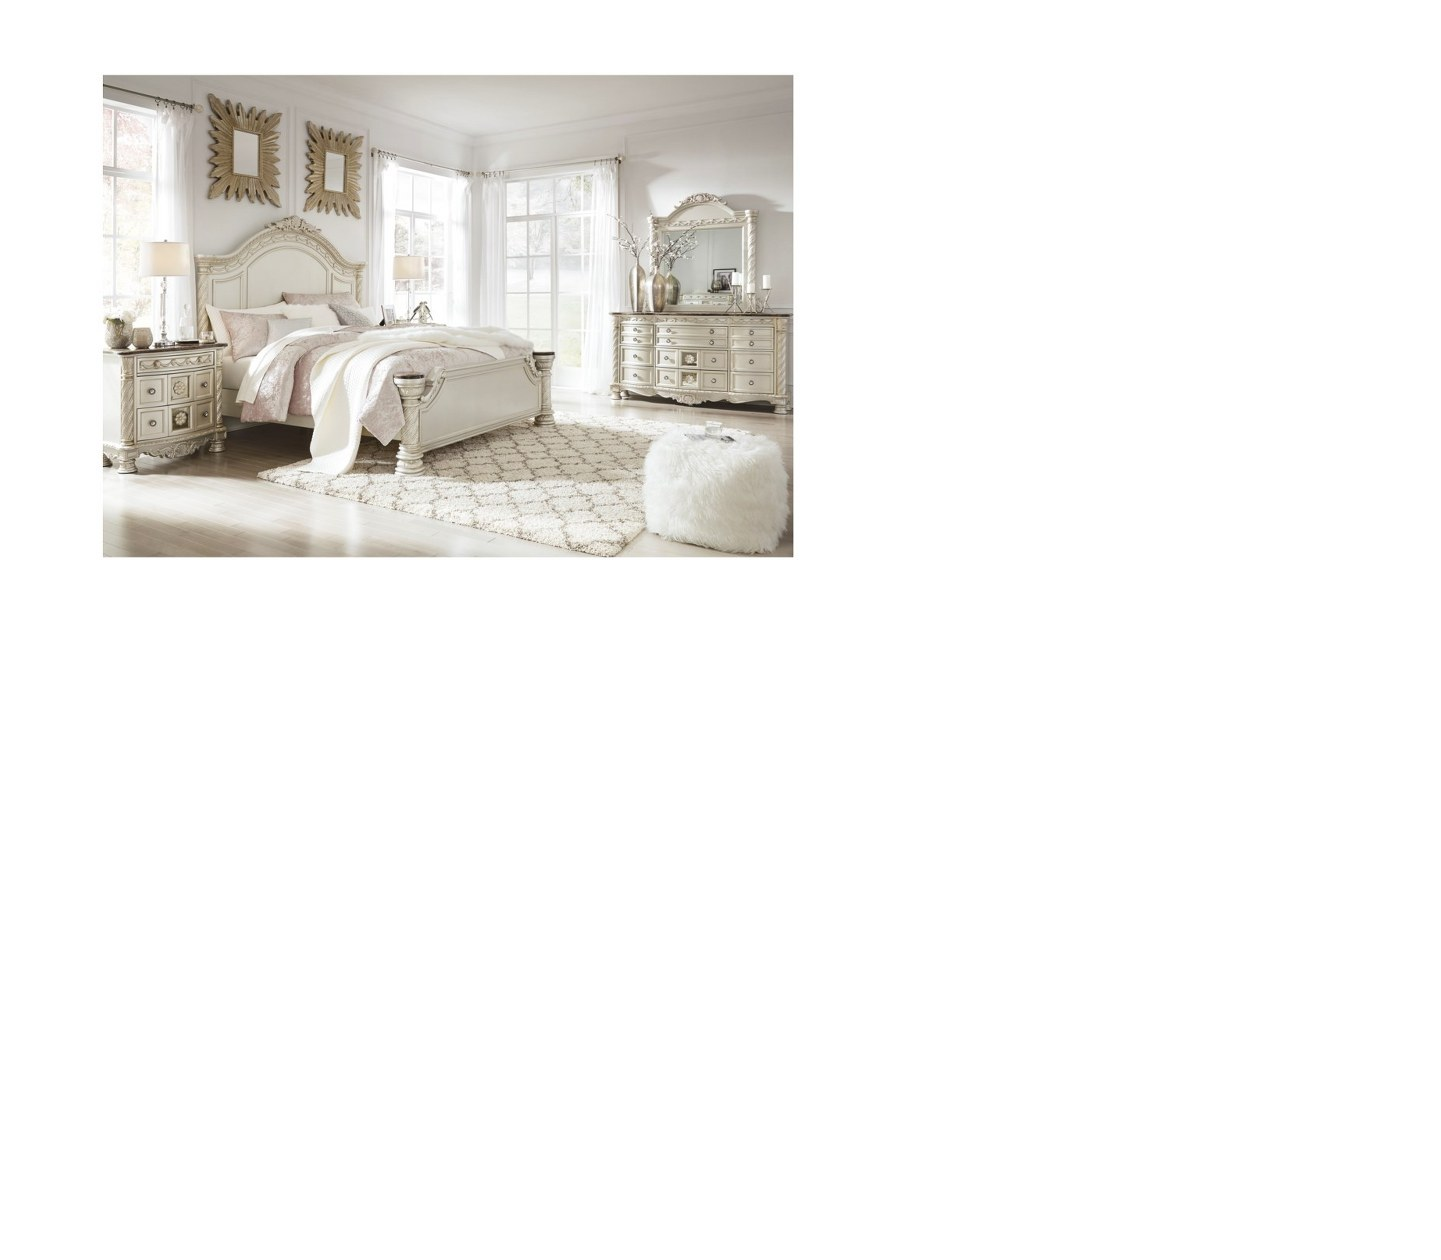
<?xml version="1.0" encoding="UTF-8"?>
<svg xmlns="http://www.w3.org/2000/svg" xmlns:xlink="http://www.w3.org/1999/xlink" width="1441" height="1260">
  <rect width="100%" height="100%" fill="#ffffff" />
  <image x="96" y="72" width="704" height="488" xlink:href="image1.png" />
</svg>
